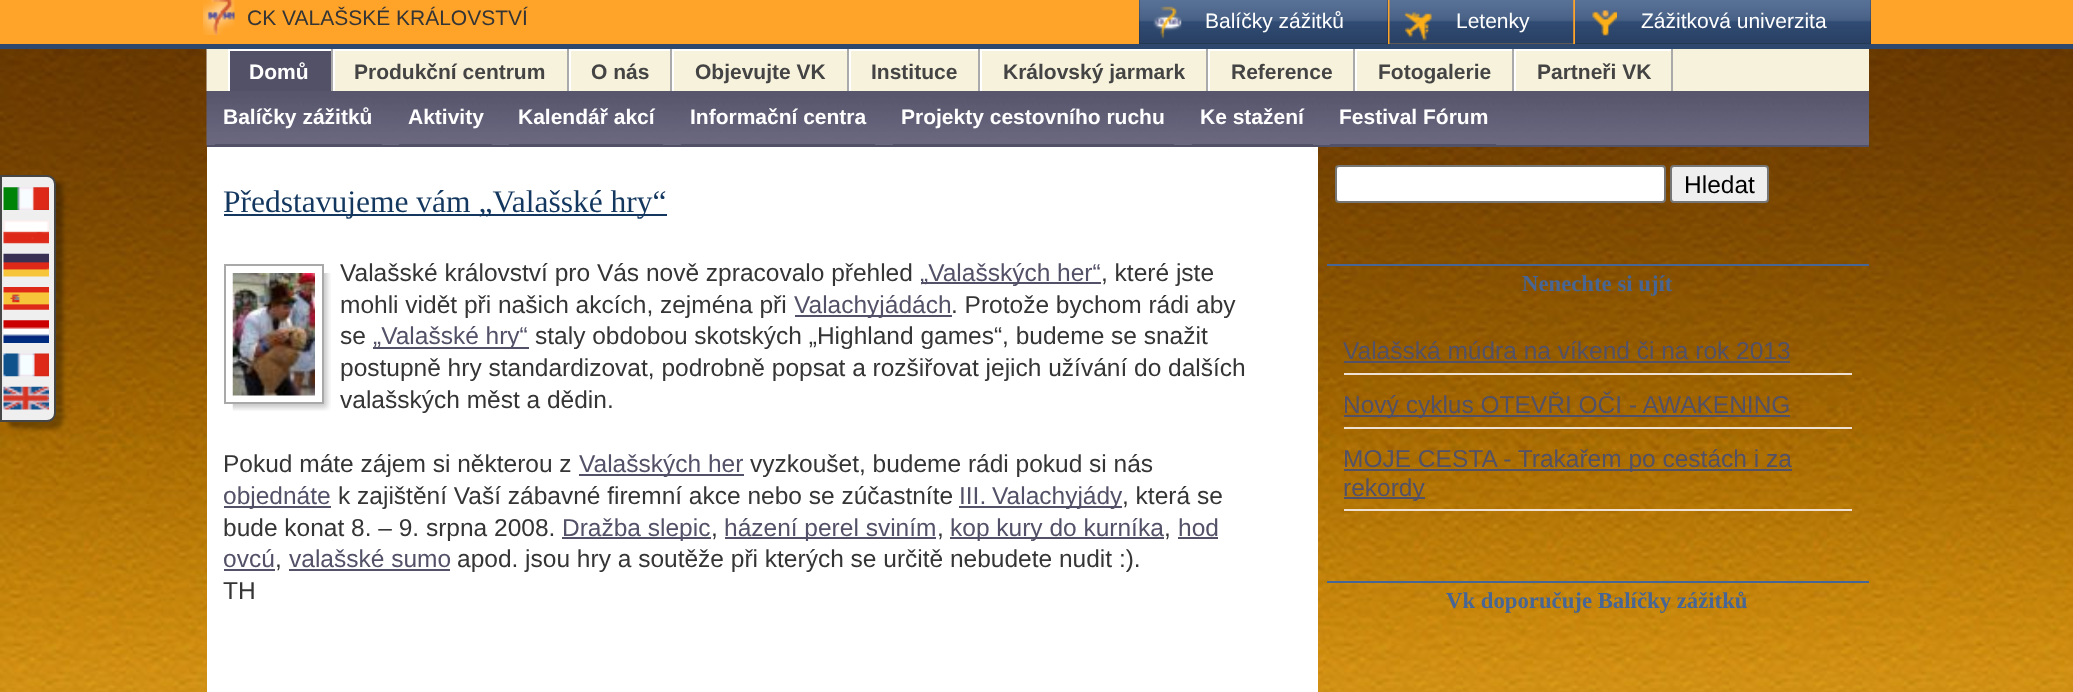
<?xml version="1.0" encoding="UTF-8"?>
<svg xmlns="http://www.w3.org/2000/svg" xmlns:xlink="http://www.w3.org/1999/xlink" width="2073" height="692">
  <rect width="100%" height="100%" fill="#ffffff" />
  <image x="0" y="49" width="2073" height="643" xlink:href="image1.png" />
  <rect width="2073" height="44" fill="#ffa429" />
  <rect y="44" width="2073" height="5" fill="#2d476d" />
  <image x="203" y="0" width="32" height="35" xlink:href="image2.png" />
  <rect x="1139" width="249" height="44" fill="#222222" />
  <image x="1139" y="0" width="249" height="44" xlink:href="image3.png" />
  <image x="1153" y="6" width="29" height="33" xlink:href="image4.png" />
  <image x="1389" y="0" width="185" height="44" xlink:href="image5.png" />
  <image x="1404" y="12" width="28" height="29" xlink:href="image6.png" />
  <rect x="1575" width="296" height="44" fill="#222222" />
  <image x="1575" y="0" width="296" height="44" xlink:href="image7.png" />
  <image x="1592" y="10" width="25" height="26" xlink:href="image8.png" />
  <rect x="7" y="182" width="56" height="247" rx="9" fill="#000000" fill-opacity="0.3" filter="blur(2px)" />
  <path d="M 1 176 h 46 c 4.5 0 8 3.5 8 8 v 229 c 0 4.5 -3.5 8 -8 8 h -46 z" fill="#efefef" stroke="#464646" stroke-width="2" />
  <image x="3" y="187" width="46" height="23" xlink:href="image9.png" />
  <image x="3" y="220" width="46" height="24" xlink:href="image10.png" />
  <image x="3" y="253" width="46" height="24" xlink:href="image11.png" />
  <image x="3" y="287" width="46" height="23" xlink:href="image12.png" />
  <image x="3" y="320" width="46" height="23" xlink:href="image13.png" />
  <image x="3" y="353" width="46" height="24" xlink:href="image14.png" />
  <image x="3" y="386" width="46" height="24" xlink:href="image15.png" />
  <image x="206" y="49" width="1" height="42" xlink:href="image16.png" />
  <rect x="207" y="49" width="1662" height="42" fill="#f7f2dc" />
  <rect x="230" y="51" width="101" height="40" fill="#535167" />
  <rect x="228" y="49" width="1445" height="2" fill="#ffffff" />
  <rect x="331" y="49" width="2" height="44" fill="#aaaaaa" />
  <rect x="228" y="49" width="2" height="44" fill="#ffffff" />
  <rect x="567" y="49" width="2" height="44" fill="#aaaaaa" />
  <rect x="333" y="49" width="2" height="44" fill="#ffffff" />
  <rect x="670" y="49" width="2" height="44" fill="#aaaaaa" />
  <rect x="569" y="49" width="2" height="44" fill="#ffffff" />
  <rect x="847" y="49" width="2" height="44" fill="#aaaaaa" />
  <rect x="672" y="49" width="2" height="44" fill="#ffffff" />
  <rect x="978" y="49" width="2" height="44" fill="#aaaaaa" />
  <rect x="849" y="49" width="2" height="44" fill="#ffffff" />
  <rect x="1206" y="49" width="2" height="44" fill="#aaaaaa" />
  <rect x="980" y="49" width="2" height="44" fill="#ffffff" />
  <rect x="1353" y="49" width="2" height="44" fill="#aaaaaa" />
  <rect x="1208" y="49" width="2" height="44" fill="#ffffff" />
  <rect x="1512" y="49" width="2" height="44" fill="#aaaaaa" />
  <rect x="1355" y="49" width="2" height="44" fill="#ffffff" />
  <rect x="1671" y="49" width="2" height="44" fill="#aaaaaa" />
  <rect x="1514" y="49" width="2" height="44" fill="#ffffff" />
  <image x="206" y="91" width="1663" height="55" xlink:href="image17.png" />
  <rect x="207" y="145" width="1662" height="2" fill="#535167" />
  <rect x="215" y="144" width="167" height="1" fill="#535167" />
  <rect x="399" y="144" width="93" height="1" fill="#535167" />
  <rect x="509" y="144" width="154" height="1" fill="#535167" />
  <rect x="681" y="144" width="194" height="1" fill="#535167" />
  <rect x="893" y="144" width="281" height="1" fill="#535167" />
  <rect x="1192" y="144" width="121" height="1" fill="#535167" />
  <rect x="1330" y="144" width="166" height="1" fill="#535167" />
  <rect x="207" y="147" width="1111" height="545" fill="#ffffff" />
  <rect x="224" y="214" width="443" height="2" fill="#13375e" />
  <image x="232" y="273" width="99" height="138" xlink:href="image18.png" />
  <rect x="321" y="273" width="1" height="129" fill="#ffffff" />
  <rect x="225" y="265" width="98" height="138" fill="none" stroke="#a9a9a9" stroke-width="2" />
  <image x="232" y="273" width="83" height="123" xlink:href="image19.png" />
  <rect x="921" y="282" width="180" height="2" fill="#535167" />
  <rect x="795" y="315" width="157" height="2" fill="#535167" />
  <rect x="373" y="347" width="156" height="2" fill="#535167" />
  <rect x="579" y="474" width="165" height="2" fill="#535167" />
  <rect x="224" y="506" width="107" height="2" fill="#535167" />
  <rect x="959" y="506" width="163" height="2" fill="#535167" />
  <rect x="562" y="537" width="149" height="2" fill="#535167" />
  <rect x="725" y="537" width="211" height="2" fill="#535167" />
  <rect x="950" y="537" width="214" height="2" fill="#535167" />
  <rect x="1178" y="537" width="40" height="2" fill="#535167" />
  <rect x="224" y="569" width="51" height="2" fill="#535167" />
  <rect x="289" y="569" width="161" height="2" fill="#535167" />
  <rect x="1336" y="166" width="329" height="36" rx="3" fill="#ffffff" stroke="#767676" stroke-width="2" />
  <rect x="1671" y="166" width="97" height="36" rx="3" fill="#efefef" stroke="#767676" stroke-width="2" />
  <rect x="1327" y="264" width="542" height="2" fill="#476695" />
  <rect x="1344" y="373" width="508" height="2" fill="#efe1d4" />
  <rect x="1344" y="361" width="446" height="2" fill="#535167" />
  <rect x="1344" y="427" width="508" height="2" fill="#efe1d4" />
  <rect x="1344" y="415" width="446" height="2" fill="#535167" />
  <rect x="1344" y="509" width="508" height="2" fill="#efe1d4" />
  <rect x="1344" y="469" width="448" height="2" fill="#535167" />
  <rect x="1344" y="497" width="81" height="2" fill="#535167" />
  <rect x="1327" y="581" width="542" height="2" fill="#476695" />
  <text x="247" y="25" style="font-family: Liberation Sans; font-size: 21px; fill: #353535">CK VALAŠSKÉ KRÁLOVSTVÍ</text>
  <text x="1205" y="28" style="font-family: Liberation Sans; font-size: 21px; fill: #ffffff">Balíčky zážitků</text>
  <text x="1456" y="28" style="font-family: Liberation Sans; font-size: 21px; fill: #ffffff">Letenky</text>
  <text x="1641" y="28" style="font-family: Liberation Sans; font-size: 21px; fill: #ffffff">Zážitková univerzita</text>
  <text x="249" y="79" style="font-family: Liberation Sans; font-size: 21px; font-weight: bold; fill: #ffffff">Domů</text>
  <text x="223" y="124" style="font-family: Liberation Sans; font-size: 21px; font-weight: bold; fill: #ffffff">Balíčky zážitků</text>
  <text x="408" y="124" style="font-family: Liberation Sans; font-size: 21px; font-weight: bold; fill: #ffffff">Aktivity</text>
  <text x="518" y="124" style="font-family: Liberation Sans; font-size: 21px; font-weight: bold; fill: #ffffff">Kalendář akcí</text>
  <text x="690" y="124" style="font-family: Liberation Sans; font-size: 21px; font-weight: bold; fill: #ffffff">Informační centra</text>
  <text x="901" y="124" style="font-family: Liberation Sans; font-size: 21px; font-weight: bold; fill: #ffffff">Projekty cestovního ruchu</text>
  <text x="1200" y="124" style="font-family: Liberation Sans; font-size: 21px; font-weight: bold; fill: #ffffff">Ke stažení</text>
  <text x="1339" y="124" style="font-family: Liberation Sans; font-size: 21px; font-weight: bold; fill: #ffffff">Festival Fórum</text>
  <text x="354" y="79" style="font-family: Liberation Sans; font-size: 21px; font-weight: bold; fill: #444444">Produkční centrum</text>
  <text x="591" y="79" style="font-family: Liberation Sans; font-size: 21px; font-weight: bold; fill: #444444">O nás</text>
  <text x="695" y="79" style="font-family: Liberation Sans; font-size: 21px; font-weight: bold; fill: #444444">Objevujte VK</text>
  <text x="871" y="79" style="font-family: Liberation Sans; font-size: 21px; font-weight: bold; fill: #444444">Instituce</text>
  <text x="1003" y="79" style="font-family: Liberation Sans; font-size: 21px; font-weight: bold; fill: #444444">Královský jarmark</text>
  <text x="1231" y="79" style="font-family: Liberation Sans; font-size: 21px; font-weight: bold; fill: #444444">Reference</text>
  <text x="1378" y="79" style="font-family: Liberation Sans; font-size: 21px; font-weight: bold; fill: #444444">Fotogalerie</text>
  <text x="1537" y="79" style="font-family: Liberation Sans; font-size: 21px; font-weight: bold; fill: #444444">Partneři VK</text>
  <text x="223" y="212" style="font-family: Liberation Serif; font-size: 31.5px; fill: #13375e">Představujeme vám „Valašské hry“</text>
  <text x="340" y="281" style="font-family: Liberation Sans; font-size: 24.5px; fill: #353535">Valašské království pro Vás nově zpracovalo přehled</text>
  <text x="920" y="281" style="font-family: Liberation Sans; font-size: 24.5px; fill: #535167">„Valašských her“</text>
  <text x="1101" y="281" style="font-family: Liberation Sans; font-size: 24.5px; fill: #353535">, které jste</text>
  <text x="340" y="313" style="font-family: Liberation Sans; font-size: 24.5px; fill: #353535">mohli vidět při našich akcích, zejména při</text>
  <text x="794" y="313" style="font-family: Liberation Sans; font-size: 24.5px; fill: #535167">Valachyjádách</text>
  <text x="951" y="313" style="font-family: Liberation Sans; font-size: 24.5px; fill: #353535">. Protože bychom rádi aby</text>
  <text x="340" y="344" style="font-family: Liberation Sans; font-size: 24.5px; fill: #353535">se</text>
  <text x="373" y="344" style="font-family: Liberation Sans; font-size: 24.5px; fill: #535167">„Valašské hry“</text>
  <text x="535" y="344" style="font-family: Liberation Sans; font-size: 24.5px; fill: #353535">staly obdobou skotských „Highland games“, budeme se snažit</text>
  <text x="340" y="376" style="font-family: Liberation Sans; font-size: 24.5px; fill: #353535">postupně hry standardizovat, podrobně popsat a rozšiřovat jejich užívání do dalších</text>
  <text x="340" y="408" style="font-family: Liberation Sans; font-size: 24.5px; fill: #353535">valašských měst a dědin.</text>
  <text x="223" y="472" style="font-family: Liberation Sans; font-size: 24.5px; fill: #353535">Pokud máte zájem si některou z</text>
  <text x="579" y="472" style="font-family: Liberation Sans; font-size: 24.5px; fill: #535167">Valašských her</text>
  <text x="750" y="472" style="font-family: Liberation Sans; font-size: 24.5px; fill: #353535">vyzkoušet, budeme rádi pokud si nás</text>
  <text x="223" y="504" style="font-family: Liberation Sans; font-size: 24.5px; fill: #535167">objednáte</text>
  <text x="338" y="504" style="font-family: Liberation Sans; font-size: 24.5px; fill: #353535">k zajištění Vaší zábavné firemní akce nebo se zúčastníte</text>
  <text x="959" y="504" word-spacing="-1" style="font-family: Liberation Sans; font-size: 24.5px; fill: #535167">III. Valachyjády</text>
  <text x="1122" y="504" style="font-family: Liberation Sans; font-size: 24.5px; fill: #353535">, která se</text>
  <text x="223" y="536" style="font-family: Liberation Sans; font-size: 24.5px; fill: #353535">bude konat 8. – 9. srpna 2008.</text>
  <text x="562" y="536" style="font-family: Liberation Sans; font-size: 24.5px; fill: #535167">Dražba slepic</text>
  <text x="711" y="536" style="font-family: Liberation Sans; font-size: 24.5px; fill: #353535">,</text>
  <text x="724" y="536" style="font-family: Liberation Sans; font-size: 24.5px; fill: #535167">házení perel sviním</text>
  <text x="937" y="536" style="font-family: Liberation Sans; font-size: 24.5px; fill: #353535">,</text>
  <text x="950" y="536" style="font-family: Liberation Sans; font-size: 24.5px; fill: #535167">kop kury do kurníka</text>
  <text x="1164" y="536" style="font-family: Liberation Sans; font-size: 24.5px; fill: #353535">,</text>
  <text x="1178" y="536" style="font-family: Liberation Sans; font-size: 24.5px; fill: #535167">hod</text>
  <text x="223" y="567" style="font-family: Liberation Sans; font-size: 24.5px; fill: #535167">ovcú</text>
  <text x="275" y="567" style="font-family: Liberation Sans; font-size: 24.5px; fill: #353535">,</text>
  <text x="289" y="567" style="font-family: Liberation Sans; font-size: 24.5px; fill: #535167">valašské sumo</text>
  <text x="457" y="567" style="font-family: Liberation Sans; font-size: 24.5px; fill: #353535">apod. jsou hry a soutěže při kterých se určitě nebudete nudit :).</text>
  <text x="223" y="599" style="font-family: Liberation Sans; font-size: 24.5px; fill: #353535">TH</text>
  <text x="1684" y="193" style="font-family: Liberation Sans; font-size: 24.5px; fill: #000000">Hledat</text>
  <text x="1522" y="291" style="font-family: Liberation Serif; font-size: 22.75px; font-weight: bold; fill: #476695">Nenechte si ujít</text>
  <text x="1343" y="359" style="font-family: Liberation Sans; font-size: 24.5px; fill: #535167">Valašská múdra na víkend či na rok 2013</text>
  <text x="1343" y="413" style="font-family: Liberation Sans; font-size: 24.5px; fill: #535167">Nový cyklus OTEVŘI OČI - AWAKENING</text>
  <text x="1343" y="467" style="font-family: Liberation Sans; font-size: 24.5px; fill: #535167">MOJE CESTA - Trakařem po cestách i za</text>
  <text x="1343" y="496" style="font-family: Liberation Sans; font-size: 24.5px; fill: #535167">rekordy</text>
  <text x="1446" y="608" style="font-family: Liberation Serif; font-size: 22.75px; font-weight: bold; fill: #476695">Vk doporučuje Balíčky zážitků</text>
</svg>
